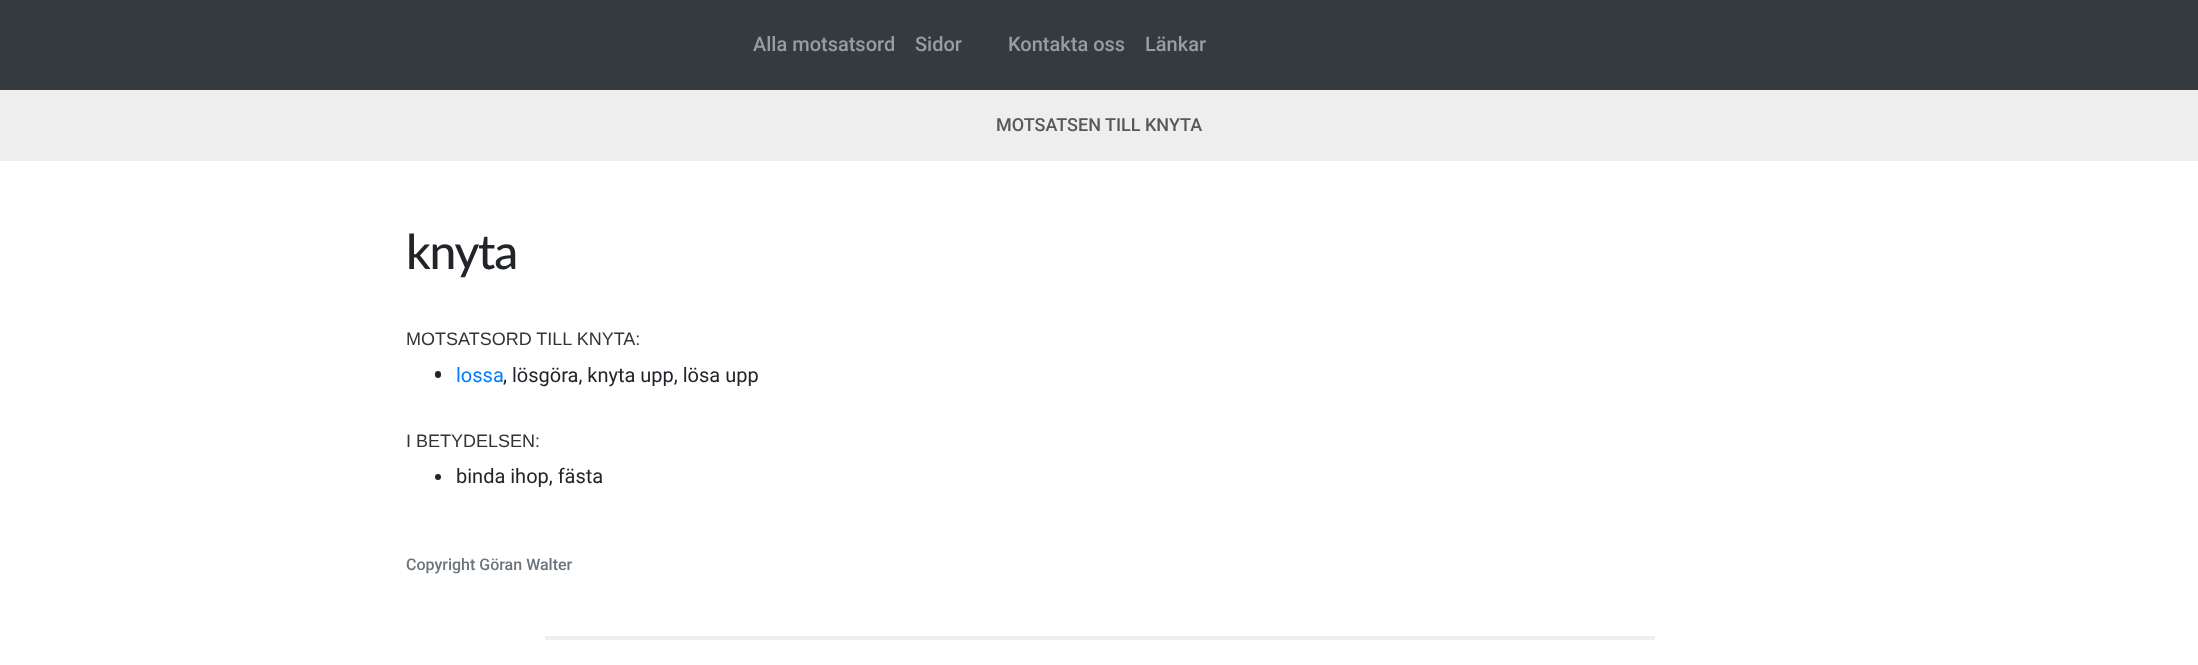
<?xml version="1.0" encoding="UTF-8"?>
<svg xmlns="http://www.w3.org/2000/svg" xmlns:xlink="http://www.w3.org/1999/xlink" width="2198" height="665">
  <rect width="100%" height="100%" fill="#ffffff" />
  <rect width="2198" height="90" fill="#343a40" />
  <rect y="90" width="2198" height="71" fill="#eeeeee" />
  <rect x="435" y="371" width="6" height="7" rx="3" fill="#212529" />
  <circle cx="438" cy="477" r="3" fill="#212529" />
  <rect x="545" y="636" width="1110" height="4" fill="#eeeeee" />
  <text x="753" y="51" style="font-family: Roboto; font-size: 20px; font-weight: 500; fill: #9a9da0">Alla motsatsord</text>
  <text x="915" y="51" style="font-family: Roboto; font-size: 20px; font-weight: 500; fill: #9a9da0">Sidor</text>
  <text x="1008" y="51" style="font-family: Roboto; font-size: 20px; font-weight: 500; fill: #9a9da0">Kontakta oss</text>
  <text x="1145" y="51" style="font-family: Roboto; font-size: 20px; font-weight: 500; fill: #9a9da0">Länkar</text>
  <text x="996" y="131" style="font-family: Roboto; font-size: 18px; font-weight: 500; fill: #595758">MOTSATSEN TILL KNYTA</text>
  <text x="406" y="269" style="font-family: Lato; font-size: 48px; font-weight: 500; letter-spacing: -1.25px; fill: #212529">knyta</text>
  <text x="406" y="345" style="font-family: Liberation Sans; font-size: 18px; fill: #333333">MOTSATSORD TILL KNYTA:</text>
  <text x="456" y="382" style="font-family: Roboto; font-size: 20px; fill: #007bff">lossa</text>
  <text x="503" y="382" style="font-family: Roboto; font-size: 20px; fill: #212529">, lösgöra, knyta upp, lösa upp</text>
  <text x="406" y="447" style="font-family: Liberation Sans; font-size: 18px; fill: #333333">I BETYDELSEN:</text>
  <text x="456" y="483" style="font-family: Roboto; font-size: 20px; fill: #212529">binda ihop, fästa</text>
  <text x="406" y="570" style="font-family: Roboto; font-size: 16px; font-weight: 500; fill: #6c757d">Copyright Göran Walter</text>
</svg>
